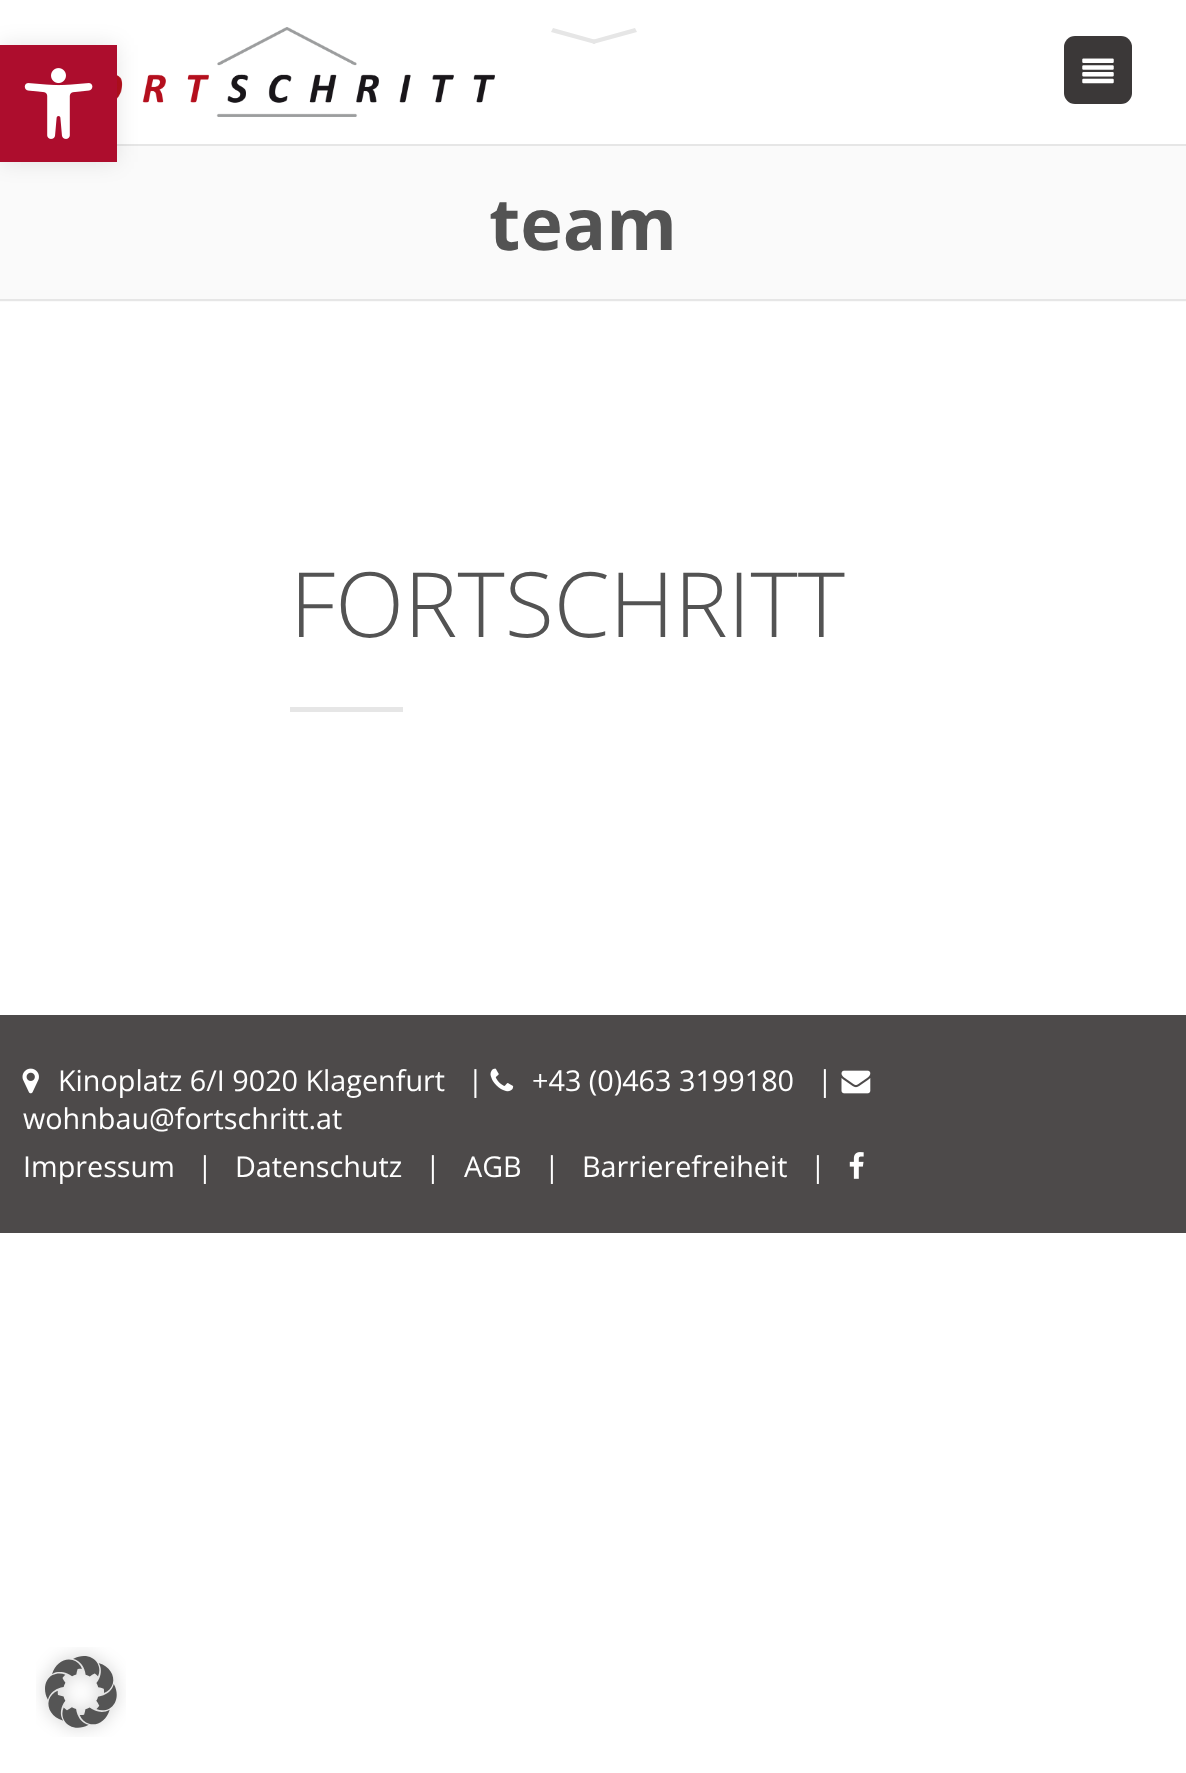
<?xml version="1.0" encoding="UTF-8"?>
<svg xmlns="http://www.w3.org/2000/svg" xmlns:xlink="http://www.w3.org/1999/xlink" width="1186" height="1773">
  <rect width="100%" height="100%" fill="#ffffff" />
  <image x="117" y="27" width="378" height="90" xlink:href="image2.png" />
  <rect y="146" width="1186" height="156" fill="#fafafa" />
  <rect x="117" y="144" width="1069" height="2" fill="#e6e6e6" />
  <rect y="45" width="117" height="117" fill="#000000" fill-opacity="0.1" filter="blur(11px)" />
  <rect y="45" width="117" height="117" fill="#ad0d2d" />
  <image x="24" y="68" width="69" height="71" xlink:href="image1.png" />
  <rect x="1064" y="36" width="68" height="68" rx="11" fill="#3b3838" />
  <image x="1082" y="58" width="32" height="26" xlink:href="image3.png" />
  <path d="M 553 28 l 43 12 l -1 4 l -44 -12 z" fill="#e6e6e6" />
  <path d="M 592 40 l 43 -12 l 2 4 l -44 12 z" fill="#e6e6e6" />
  <rect y="299" width="1186" height="2" fill="#e6e6e6" />
  <rect x="290" y="707" width="113" height="5" fill="#e6e6e6" />
  <rect y="1015" width="1186" height="218" fill="#4d4a4a" />
  <image x="22" y="1068" width="17" height="26" xlink:href="image4.png" />
  <image x="490" y="1068" width="24" height="24" xlink:href="image5.png" />
  <image x="841" y="1070" width="30" height="24" xlink:href="image6.png" />
  <image x="849" y="1152" width="15" height="27" xlink:href="image7.png" />
  <image x="36" y="1647" width="90" height="90" xlink:href="image8.png" />
  <text x="489" y="250" style="font-family: Open Sans; font-size: 72px; font-weight: bold; fill: #535353">team</text>
  <text x="290" y="637" style="font-family: Open Sans; font-size: 90px; font-weight: 300; fill: #535353">FORTSCHRITT</text>
  <text x="58" y="1091" style="font-family: Open Sans; font-size: 28.75px; fill: #ffffff" xml:space="preserve">Kinoplatz 6/I 9020 Klagenfurt   |</text>
  <text x="532" y="1091" style="font-family: Open Sans; font-size: 28.75px; fill: #ffffff">+43 (0)463 3199180</text>
  <text x="817" y="1091" style="font-family: Open Sans; font-size: 28.75px; fill: #ffffff">|</text>
  <text x="23" y="1129" style="font-family: Open Sans; font-size: 28.75px; fill: #ffffff">wohnbau@fortschritt.at</text>
  <text x="23" y="1177" style="font-family: Open Sans; font-size: 28.75px; fill: #ffffff">Impressum</text>
  <text x="197" y="1177" style="font-family: Open Sans; font-size: 28.75px; fill: #ffffff">|</text>
  <text x="235" y="1177" style="font-family: Open Sans; font-size: 28.75px; fill: #ffffff">Datenschutz</text>
  <text x="425" y="1177" style="font-family: Open Sans; font-size: 28.75px; fill: #ffffff">|</text>
  <text x="464" y="1177" style="font-family: Open Sans; font-size: 28.75px; fill: #ffffff">AGB</text>
  <text x="544" y="1177" style="font-family: Open Sans; font-size: 28.75px; fill: #ffffff">|</text>
  <text x="582" y="1177" style="font-family: Open Sans; font-size: 28.75px; fill: #ffffff">Barrierefreiheit</text>
  <text x="810" y="1177" style="font-family: Open Sans; font-size: 28.75px; fill: #ffffff">|</text>
</svg>
